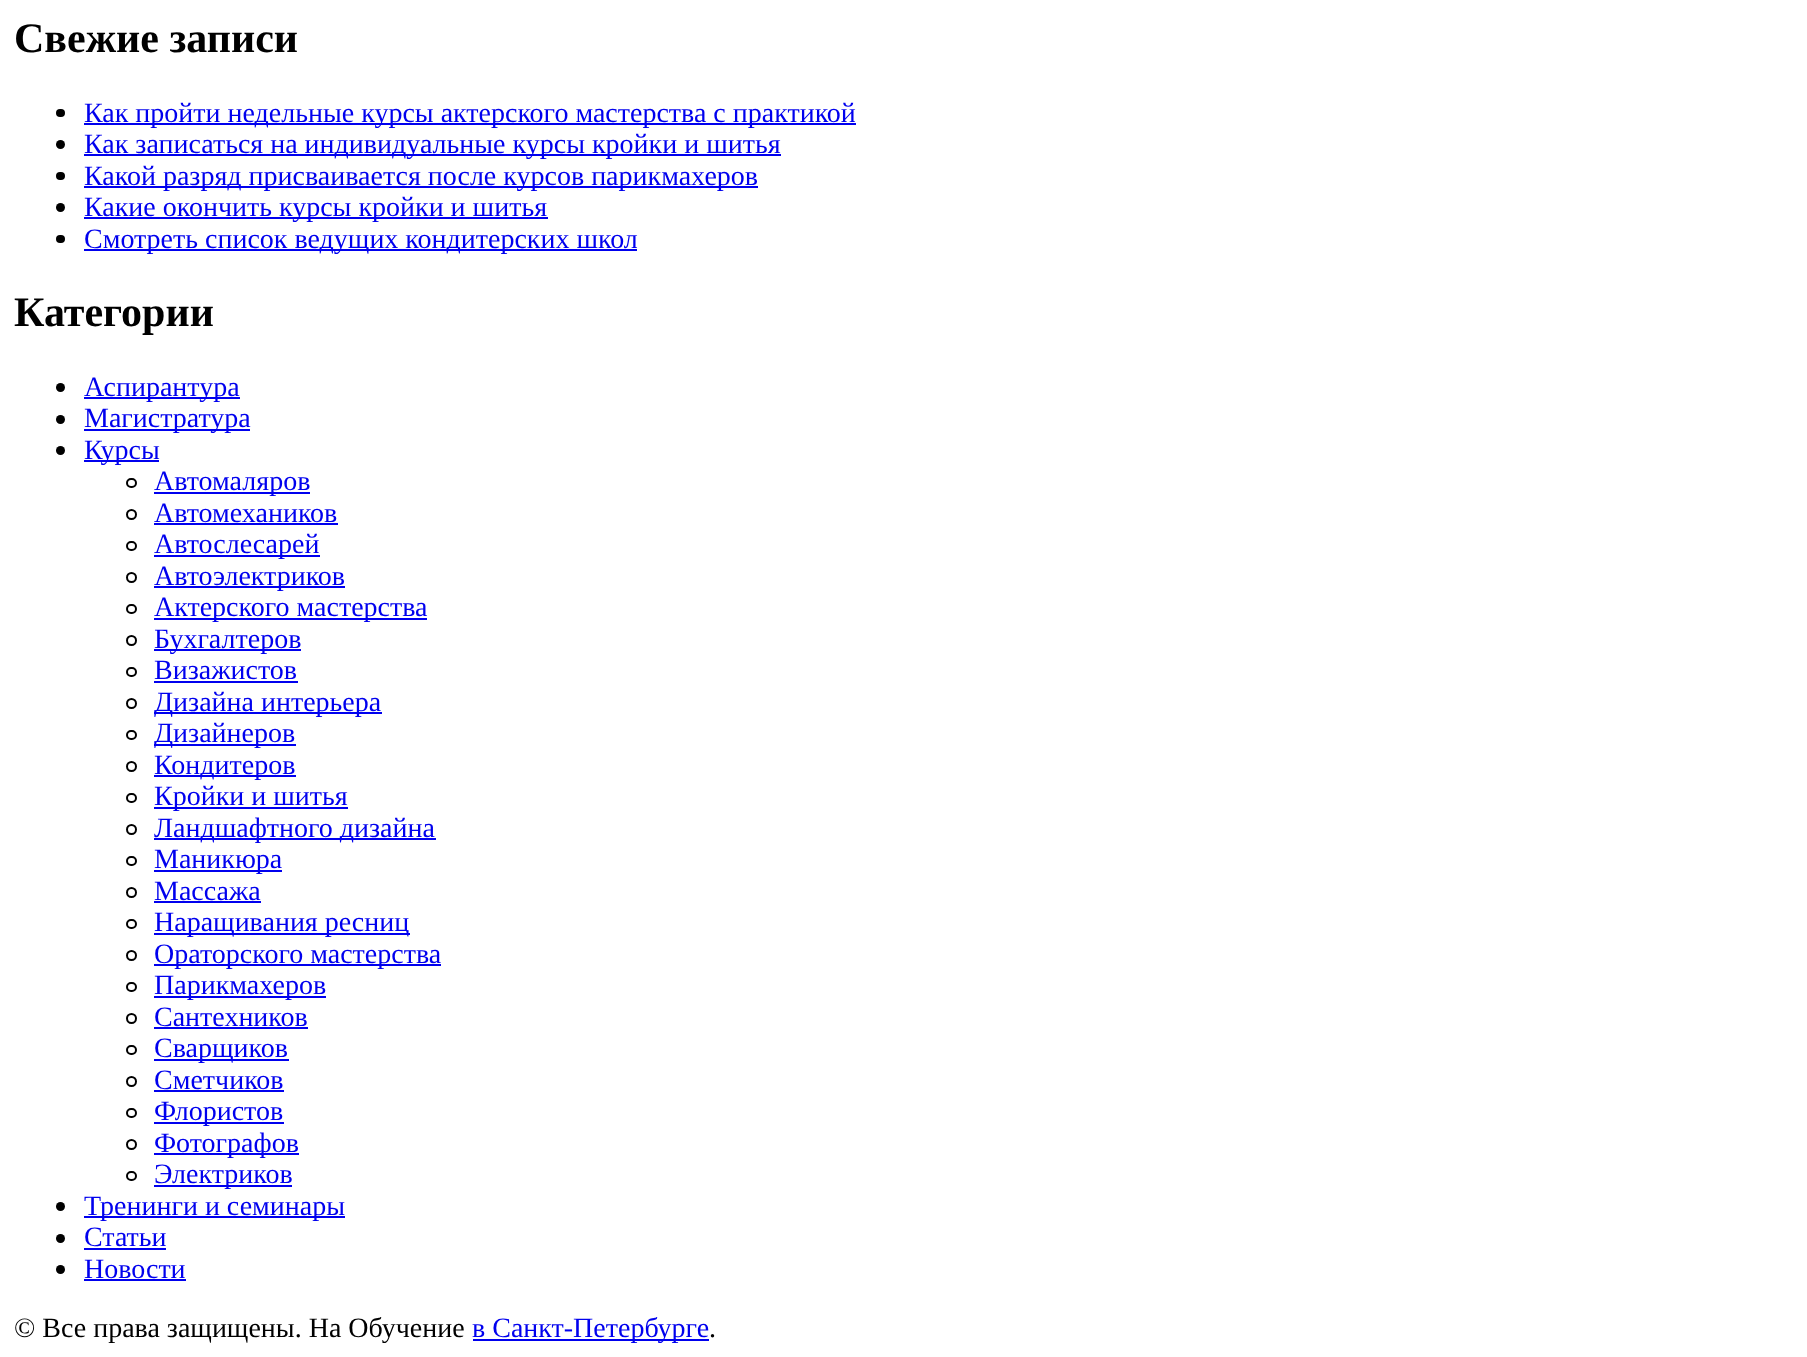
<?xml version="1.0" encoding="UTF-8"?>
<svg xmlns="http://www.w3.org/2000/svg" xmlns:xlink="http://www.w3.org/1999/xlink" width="1807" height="1357">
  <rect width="100%" height="100%" fill="#ffffff" />
  <rect x="56" y="109" width="9" height="8" rx="4" fill="#000000" />
  <rect x="84" y="123" width="772" height="2" fill="#0000ee" />
  <circle cx="60.5" cy="144.5" r="4.5" fill="#000000" />
  <rect x="84" y="154" width="697" height="2" fill="#0000ee" />
  <rect x="56" y="172" width="9" height="8" rx="4" fill="#000000" />
  <rect x="84" y="186" width="674" height="2" fill="#0000ee" />
  <circle cx="60.5" cy="207.5" r="4.5" fill="#000000" />
  <rect x="84" y="217" width="464" height="2" fill="#0000ee" />
  <rect x="56" y="235" width="9" height="8" rx="4" fill="#000000" />
  <rect x="84" y="249" width="553" height="2" fill="#0000ee" />
  <circle cx="60.5" cy="387.5" r="4.5" fill="#000000" />
  <rect x="84" y="397" width="156" height="2" fill="#0000ee" />
  <circle cx="60.5" cy="419.5" r="4.5" fill="#000000" />
  <rect x="84" y="429" width="166" height="2" fill="#0000ee" />
  <circle cx="60.5" cy="450.5" r="4.5" fill="#000000" />
  <rect x="84" y="460" width="75" height="2" fill="#0000ee" />
  <rect x="127" y="479" width="9" height="8" rx="4" fill="none" stroke="#000000" stroke-width="2" />
  <rect x="154" y="492" width="156" height="2" fill="#0000ee" />
  <circle cx="131.5" cy="514.5" r="4.5" fill="none" stroke="#000000" stroke-width="2" />
  <rect x="154" y="523" width="184" height="2" fill="#0000ee" />
  <rect x="127" y="542" width="9" height="8" rx="4" fill="none" stroke="#000000" stroke-width="2" />
  <rect x="154" y="555" width="166" height="2" fill="#0000ee" />
  <circle cx="131.5" cy="577.5" r="4.5" fill="none" stroke="#000000" stroke-width="2" />
  <rect x="154" y="586" width="191" height="2" fill="#0000ee" />
  <rect x="127" y="605" width="9" height="8" rx="4" fill="none" stroke="#000000" stroke-width="2" />
  <rect x="154" y="618" width="273" height="2" fill="#0000ee" />
  <circle cx="131.5" cy="640.5" r="4.5" fill="none" stroke="#000000" stroke-width="2" />
  <rect x="154" y="649" width="147" height="2" fill="#0000ee" />
  <rect x="127" y="668" width="9" height="8" rx="4" fill="none" stroke="#000000" stroke-width="2" />
  <rect x="154" y="681" width="144" height="2" fill="#0000ee" />
  <circle cx="131.5" cy="703.5" r="4.5" fill="none" stroke="#000000" stroke-width="2" />
  <rect x="154" y="712" width="228" height="2" fill="#0000ee" />
  <rect x="127" y="731" width="9" height="8" rx="4" fill="none" stroke="#000000" stroke-width="2" />
  <rect x="154" y="744" width="142" height="2" fill="#0000ee" />
  <circle cx="131.5" cy="766.5" r="4.5" fill="none" stroke="#000000" stroke-width="2" />
  <rect x="154" y="775" width="142" height="2" fill="#0000ee" />
  <rect x="127" y="794" width="9" height="8" rx="4" fill="none" stroke="#000000" stroke-width="2" />
  <rect x="154" y="807" width="194" height="2" fill="#0000ee" />
  <circle cx="131.5" cy="829.5" r="4.5" fill="none" stroke="#000000" stroke-width="2" />
  <rect x="154" y="838" width="282" height="2" fill="#0000ee" />
  <rect x="127" y="857" width="9" height="8" rx="4" fill="none" stroke="#000000" stroke-width="2" />
  <rect x="154" y="870" width="128" height="2" fill="#0000ee" />
  <circle cx="131.5" cy="892.5" r="4.5" fill="none" stroke="#000000" stroke-width="2" />
  <rect x="154" y="901" width="107" height="2" fill="#0000ee" />
  <rect x="127" y="920" width="9" height="8" rx="4" fill="none" stroke="#000000" stroke-width="2" />
  <rect x="154" y="933" width="256" height="2" fill="#0000ee" />
  <circle cx="131.5" cy="955.5" r="4.5" fill="none" stroke="#000000" stroke-width="2" />
  <rect x="154" y="964" width="287" height="2" fill="#0000ee" />
  <rect x="127" y="983" width="9" height="8" rx="4" fill="none" stroke="#000000" stroke-width="2" />
  <rect x="154" y="996" width="172" height="2" fill="#0000ee" />
  <circle cx="131.5" cy="1018.5" r="4.5" fill="none" stroke="#000000" stroke-width="2" />
  <rect x="154" y="1027" width="154" height="2" fill="#0000ee" />
  <rect x="127" y="1046" width="9" height="8" rx="4" fill="none" stroke="#000000" stroke-width="2" />
  <rect x="154" y="1059" width="135" height="2" fill="#0000ee" />
  <circle cx="131.5" cy="1081.5" r="4.5" fill="none" stroke="#000000" stroke-width="2" />
  <rect x="154" y="1090" width="130" height="2" fill="#0000ee" />
  <rect x="127" y="1109" width="9" height="8" rx="4" fill="none" stroke="#000000" stroke-width="2" />
  <rect x="154" y="1122" width="130" height="2" fill="#0000ee" />
  <circle cx="131.5" cy="1144.5" r="4.5" fill="none" stroke="#000000" stroke-width="2" />
  <rect x="154" y="1153" width="145" height="2" fill="#0000ee" />
  <rect x="127" y="1172" width="9" height="8" rx="4" fill="none" stroke="#000000" stroke-width="2" />
  <rect x="154" y="1185" width="138" height="2" fill="#0000ee" />
  <circle cx="60.5" cy="1206.5" r="4.5" fill="#000000" />
  <rect x="84" y="1216" width="261" height="2" fill="#0000ee" />
  <circle cx="60.5" cy="1238.5" r="4.5" fill="#000000" />
  <rect x="84" y="1248" width="82" height="2" fill="#0000ee" />
  <circle cx="60.5" cy="1269.5" r="4.5" fill="#000000" />
  <rect x="84" y="1279" width="102" height="2" fill="#0000ee" />
  <rect x="473" y="1339" width="236" height="2" fill="#0000ee" />
  <text x="14" y="52" style="font-family: Liberation Serif; font-size: 42px; font-weight: bold; fill: #000000">Свежие записи</text>
  <text x="84" y="122" style="font-family: Liberation Serif; font-size: 28px; fill: #0000ee">Как пройти недельные курсы актерского мастерства с практикой</text>
  <text x="84" y="153" style="font-family: Liberation Serif; font-size: 28px; fill: #0000ee">Как записаться на индивидуальные курсы кройки и шитья</text>
  <text x="84" y="185" style="font-family: Liberation Serif; font-size: 28px; fill: #0000ee">Какой разряд присваивается после курсов парикмахеров</text>
  <text x="84" y="216" style="font-family: Liberation Serif; font-size: 28px; fill: #0000ee">Какие окончить курсы кройки и шитья</text>
  <text x="84" y="248" style="font-family: Liberation Serif; font-size: 28px; fill: #0000ee">Смотреть список ведущих кондитерских школ</text>
  <text x="14" y="326" style="font-family: Liberation Serif; font-size: 42px; font-weight: bold; fill: #000000">Категории</text>
  <text x="84" y="396" style="font-family: Liberation Serif; font-size: 28px; fill: #0000ee">Аспирантура</text>
  <text x="84" y="427" style="font-family: Liberation Serif; font-size: 28px; fill: #0000ee">Магистратура</text>
  <text x="84" y="459" style="font-family: Liberation Serif; font-size: 28px; fill: #0000ee">Курсы</text>
  <text x="154" y="490" style="font-family: Liberation Serif; font-size: 28px; fill: #0000ee">Автомаляров</text>
  <text x="154" y="522" style="font-family: Liberation Serif; font-size: 28px; fill: #0000ee">Автомехаников</text>
  <text x="154" y="553" style="font-family: Liberation Serif; font-size: 28px; fill: #0000ee">Автослесарей</text>
  <text x="154" y="585" style="font-family: Liberation Serif; font-size: 28px; fill: #0000ee">Автоэлектриков</text>
  <text x="154" y="616" style="font-family: Liberation Serif; font-size: 28px; fill: #0000ee">Актерского мастерства</text>
  <text x="154" y="648" style="font-family: Liberation Serif; font-size: 28px; fill: #0000ee">Бухгалтеров</text>
  <text x="154" y="679" style="font-family: Liberation Serif; font-size: 28px; fill: #0000ee">Визажистов</text>
  <text x="154" y="711" style="font-family: Liberation Serif; font-size: 28px; fill: #0000ee">Дизайна интерьера</text>
  <text x="154" y="742" style="font-family: Liberation Serif; font-size: 28px; fill: #0000ee">Дизайнеров</text>
  <text x="154" y="774" style="font-family: Liberation Serif; font-size: 28px; fill: #0000ee">Кондитеров</text>
  <text x="154" y="805" style="font-family: Liberation Serif; font-size: 28px; fill: #0000ee">Кройки и шитья</text>
  <text x="154" y="837" style="font-family: Liberation Serif; font-size: 28px; fill: #0000ee">Ландшафтного дизайна</text>
  <text x="154" y="868" style="font-family: Liberation Serif; font-size: 28px; fill: #0000ee">Маникюра</text>
  <text x="154" y="900" style="font-family: Liberation Serif; font-size: 28px; fill: #0000ee">Массажа</text>
  <text x="154" y="931" style="font-family: Liberation Serif; font-size: 28px; fill: #0000ee">Наращивания ресниц</text>
  <text x="154" y="963" style="font-family: Liberation Serif; font-size: 28px; fill: #0000ee">Ораторского мастерства</text>
  <text x="154" y="994" style="font-family: Liberation Serif; font-size: 28px; fill: #0000ee">Парикмахеров</text>
  <text x="154" y="1026" style="font-family: Liberation Serif; font-size: 28px; fill: #0000ee">Сантехников</text>
  <text x="154" y="1057" style="font-family: Liberation Serif; font-size: 28px; fill: #0000ee">Сварщиков</text>
  <text x="154" y="1089" style="font-family: Liberation Serif; font-size: 28px; fill: #0000ee">Сметчиков</text>
  <text x="154" y="1120" style="font-family: Liberation Serif; font-size: 28px; fill: #0000ee">Флористов</text>
  <text x="154" y="1152" style="font-family: Liberation Serif; font-size: 28px; fill: #0000ee">Фотографов</text>
  <text x="154" y="1183" style="font-family: Liberation Serif; font-size: 28px; fill: #0000ee">Электриков</text>
  <text x="84" y="1215" style="font-family: Liberation Serif; font-size: 28px; fill: #0000ee">Тренинги и семинары</text>
  <text x="84" y="1246" style="font-family: Liberation Serif; font-size: 28px; fill: #0000ee">Статьи</text>
  <text x="84" y="1278" style="font-family: Liberation Serif; font-size: 28px; fill: #0000ee">Новости</text>
  <text x="14" y="1337" style="font-family: Liberation Serif; font-size: 28px; fill: #000000">© Все права защищены. На Обучение</text>
  <text x="472" y="1337" style="font-family: Liberation Serif; font-size: 28px; fill: #0000ee">в Санкт-Петербурге</text>
  <text x="709" y="1337" style="font-family: Liberation Serif; font-size: 28px; fill: #000000">.</text>
</svg>
